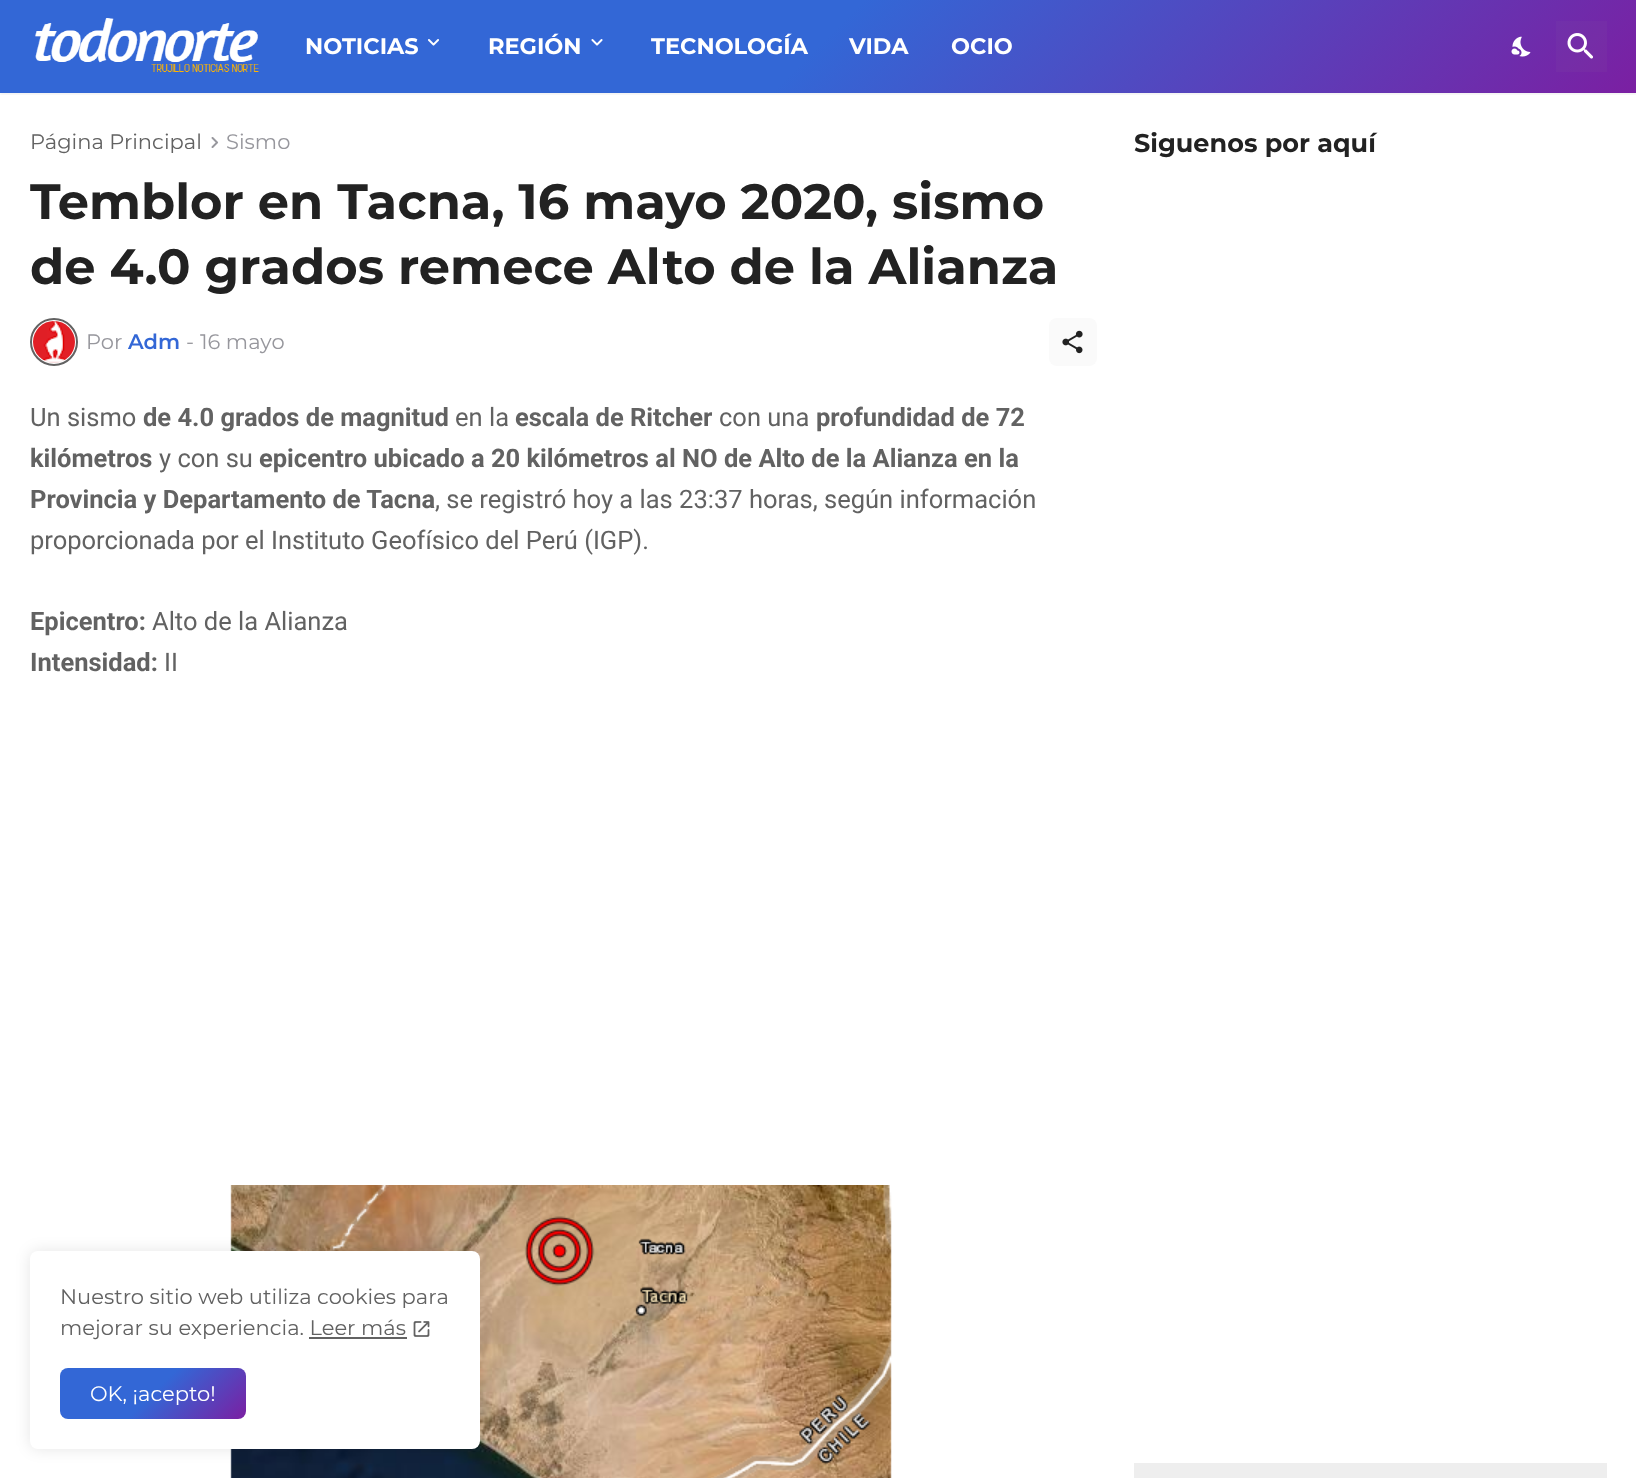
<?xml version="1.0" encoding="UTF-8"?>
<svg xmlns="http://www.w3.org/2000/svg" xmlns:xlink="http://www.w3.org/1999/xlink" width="1636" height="1478">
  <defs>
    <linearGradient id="g1" gradientUnits="userSpaceOnUse" x1="386" y1="-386" x2="1251" y2="479"><stop offset="0" stop-color="#3367d6" /><stop offset="0.5" stop-color="#3367d6" /><stop offset="1" stop-color="#7b1fa2" /></linearGradient>
    <clipPath id="clip1"><rect x="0" y="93" width="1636" height="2" /></clipPath>
    <linearGradient id="g2" gradientUnits="userSpaceOnUse" x1="94" y1="1334" x2="212" y2="1453"><stop offset="0" stop-color="#3367d6" /><stop offset="0.5" stop-color="#3367d6" /><stop offset="1" stop-color="#7b1fa2" /></linearGradient>
  </defs>
  <rect width="100%" height="100%" fill="#ffffff" />
  <rect width="1636" height="93" fill="url(#g1)" />
  <g clip-path="url(#clip1)">
    <rect y="2" width="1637" height="93" fill="#000000" fill-opacity="0.05" filter="blur(1.5px)" />
  </g>
  <image x="35" y="18" width="224" height="54" xlink:href="image1.png" />
  <image x="428" y="39" width="11" height="7" xlink:href="image2.png" />
  <image x="591" y="39" width="12" height="7" xlink:href="image3.png" />
  <image x="1511" y="36" width="20" height="21" xlink:href="image4.png" />
  <rect x="1556" y="21" width="51" height="51" fill="#9b9b9b" fill-opacity="0.05" />
  <image x="1567" y="33" width="26" height="26" xlink:href="image5.png" />
  <image x="211" y="137" width="8" height="11" xlink:href="image6.png" />
  <circle cx="54" cy="342" r="23" fill="none" stroke="#626262" stroke-width="2" />
  <image x="33" y="321" width="42" height="42" xlink:href="image7.png" />
  <rect x="1049" y="318" width="48" height="48" rx="8" fill="#fafafa" />
  <image x="1062" y="330" width="21" height="24" xlink:href="image8.png" />
  <image x="230" y="1185" width="662" height="293" xlink:href="image9.png" />
  <rect x="1134" y="1463" width="473" height="15" fill="#eeeeee" />
  <rect x="30" y="1251" width="450" height="198" rx="8" fill="#000000" fill-opacity="0.1" filter="blur(7.5px)" />
  <rect x="30" y="1251" width="450" height="198" rx="8" fill="#ffffff" />
  <image x="413" y="1321" width="17" height="16" xlink:href="image10.png" />
  <rect x="309" y="1337" width="98" height="2" fill="#626262" />
  <rect x="60" y="1368" width="186" height="51" rx="8" fill="url(#g2)" />
  <text x="305" y="54" style="font-family: Montserrat; font-size: 22.5px; font-weight: bold; fill: #ffffff">NOTICIAS</text>
  <text x="488" y="54" style="font-family: Montserrat; font-size: 22.5px; font-weight: bold; fill: #ffffff">REGIÓN</text>
  <text x="651" y="54" style="font-family: Montserrat; font-size: 22.5px; font-weight: bold; fill: #ffffff">TECNOLOGÍA</text>
  <text x="849" y="54" style="font-family: Montserrat; font-size: 22.5px; font-weight: bold; fill: #ffffff">VIDA</text>
  <text x="951" y="54" style="font-family: Montserrat; font-size: 22.5px; font-weight: bold; fill: #ffffff">OCIO</text>
  <text x="30" y="149" style="font-family: Montserrat; font-size: 21px; fill: #626262">Página Principal</text>
  <text x="226" y="149" style="font-family: Montserrat; font-size: 21px; fill: #97979d">Sismo</text>
  <text x="30" y="219" style="font-family: Montserrat; font-size: 49.5px; font-weight: bold; fill: #222222">Temblor en Tacna, 16 mayo 2020, sismo</text>
  <text x="30" y="284" style="font-family: Montserrat; font-size: 49.5px; font-weight: bold; fill: #222222">de 4.0 grados remece Alto de la Alianza</text>
  <text x="86" y="349" style="font-family: Montserrat; font-size: 21px; fill: #97979d">Por</text>
  <text x="128" y="349" style="font-family: Montserrat; font-size: 21px; font-weight: 600; fill: #3367d6">Adm</text>
  <text x="186" y="349" style="font-family: Montserrat; font-size: 21px; fill: #97979d">-</text>
  <text x="200" y="349" style="font-family: Montserrat; font-size: 21px; fill: #97979d">16 mayo</text>
  <text x="30" y="426" style="font-family: Roboto; font-size: 25.5px; fill: #626262">Un sismo</text>
  <text x="143" y="426" style="font-family: Roboto; font-size: 25.5px; font-weight: bold; fill: #626262">de 4.0 grados de magnitud</text>
  <text x="455" y="426" style="font-family: Roboto; font-size: 25.5px; fill: #626262">en la</text>
  <text x="515" y="426" style="font-family: Roboto; font-size: 25.5px; font-weight: bold; fill: #626262">escala de Ritcher</text>
  <text x="719" y="426" style="font-family: Roboto; font-size: 25.5px; fill: #626262">con una</text>
  <text x="816" y="426" style="font-family: Roboto; font-size: 25.5px; font-weight: bold; fill: #626262">profundidad de 72</text>
  <text x="30" y="467" style="font-family: Roboto; font-size: 25.5px; font-weight: bold; fill: #626262">kilómetros</text>
  <text x="159" y="467" style="font-family: Roboto; font-size: 25.5px; fill: #626262">y con su</text>
  <text x="259" y="467" style="font-family: Roboto; font-size: 25.5px; font-weight: bold; fill: #626262">epicentro ubicado a 20 kilómetros al NO de Alto de la Alianza en la</text>
  <text x="30" y="508" style="font-family: Roboto; font-size: 25.5px; font-weight: bold; fill: #626262">Provincia y Departamento de Tacna</text>
  <text x="435" y="508" style="font-family: Roboto; font-size: 25.5px; fill: #626262">, se registró hoy a las 23:37 horas, según información</text>
  <text x="30" y="549" style="font-family: Roboto; font-size: 25.5px; fill: #626262">proporcionada por el Instituto Geofísico del Perú (IGP).</text>
  <text x="30" y="630" style="font-family: Roboto; font-size: 25.5px; font-weight: bold; fill: #626262">Epicentro:</text>
  <text x="152" y="630" style="font-family: Roboto; font-size: 25.5px; fill: #626262">Alto de la Alianza</text>
  <text x="30" y="671" style="font-family: Roboto; font-size: 25.5px; font-weight: bold; fill: #626262">Intensidad:</text>
  <text x="164" y="671" style="font-family: Roboto; font-size: 25.5px; fill: #626262">II</text>
  <text x="1134" y="152" style="font-family: Montserrat; font-size: 25.5px; font-weight: bold; fill: #222222">Siguenos por aquí</text>
  <text x="60" y="1304" style="font-family: Montserrat; font-size: 21px; fill: #626262">Nuestro sitio web utiliza cookies para</text>
  <text x="60" y="1335" style="font-family: Montserrat; font-size: 21px; fill: #626262">mejorar su experiencia. Leer más</text>
  <text x="90" y="1401" style="font-family: Montserrat; font-size: 21px; fill: #ffffff">OK, ¡acepto!</text>
</svg>
